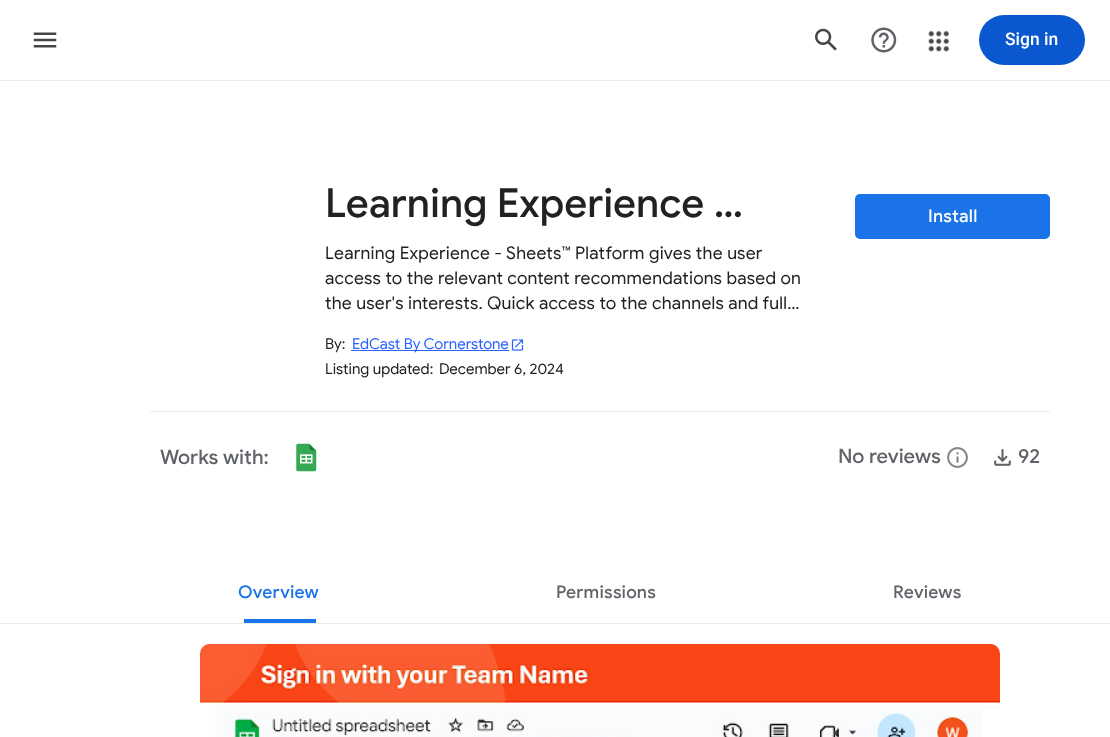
<?xml version="1.0" encoding="UTF-8"?>
<svg xmlns="http://www.w3.org/2000/svg" xmlns:xlink="http://www.w3.org/1999/xlink" width="1110" height="737">
  <rect width="100%" height="100%" fill="#ffffff" />
  <rect y="80" width="1110" height="1" fill="#e8eaed" />
  <image x="33" y="32" width="24" height="16" xlink:href="image1.png" />
  <image x="815" y="28" width="22" height="23" xlink:href="image2.png" />
  <image x="871" y="27" width="26" height="26" xlink:href="image3.png" />
  <image x="928" y="31" width="21" height="21" xlink:href="image4.png" />
  <rect x="979" y="15" width="106" height="50" rx="25" fill="#0b57d0" />
  <rect x="351" y="350" width="158" height="1" fill="#2962ff" />
  <image x="511" y="339" width="13" height="12" xlink:href="image5.png" />
  <rect x="855" y="194" width="195" height="45" rx="5" fill="#1a73e8" />
  <rect x="150" y="411" width="900" height="1" fill="#e8eaed" />
  <image x="296" y="443" width="21" height="29" xlink:href="image6.png" />
  <image x="947" y="447" width="21" height="21" xlink:href="image7.png" />
  <image x="994" y="449" width="17" height="17" xlink:href="image8.png" />
  <rect x="244" y="619" width="72" height="4" fill="#1a73e8" />
  <rect y="623" width="1110" height="1" fill="#e8eaed" />
  <image x="200" y="644" width="800" height="93" xlink:href="image9.png" />
  <text x="1005" y="45" style="font-family: Roboto; font-size: 17.5px; font-weight: 500; fill: #ffffff">Sign in</text>
  <text x="325" y="217" style="font-family: Google Sans; font-size: 40px; font-weight: 500; fill: #212121">Learning Experience …</text>
  <text x="325" y="259" style="font-family: Google Sans; font-size: 17.5px; letter-spacing: 0.25px; fill: #212121">Learning Experience - Sheets™ Platform gives the user</text>
  <text x="325" y="284" style="font-family: Google Sans; font-size: 17.5px; letter-spacing: 0.25px; fill: #212121">access to the relevant content recommendations based on</text>
  <text x="325" y="309" style="font-family: Google Sans; font-size: 17.5px; letter-spacing: 0.25px; fill: #212121">the user's interests. Quick access to the channels and full…</text>
  <text x="325" y="349" style="font-family: Google Sans; font-size: 15px; fill: #212121">By:</text>
  <text x="352" y="349" style="font-family: Google Sans; font-size: 15px; fill: #2962ff">EdCast By Cornerstone</text>
  <text x="325" y="374" style="font-family: Google Sans; font-size: 15px; fill: #212121">Listing updated:</text>
  <text x="439" y="374" style="font-family: Google Sans; font-size: 15px; fill: #212121">December 6, 2024</text>
  <text x="928" y="222" style="font-family: Google Sans; font-size: 17.5px; font-weight: 500; letter-spacing: 0.25px; fill: #ffffff">Install</text>
  <text x="160" y="464" style="font-family: Google Sans; font-size: 20px; font-weight: 500; fill: #5f6368">Works with:</text>
  <text x="838" y="463" style="font-family: Google Sans; font-size: 20px; font-weight: 500; fill: #5f6368">No reviews</text>
  <text x="1018" y="463" style="font-family: Google Sans; font-size: 20px; font-weight: 500; fill: #5f6368">92</text>
  <text x="238" y="598" style="font-family: Google Sans; font-size: 17.5px; font-weight: 500; letter-spacing: 0.25px; fill: #1a73e8">Overview</text>
  <text x="556" y="598" style="font-family: Google Sans; font-size: 17.5px; font-weight: 500; letter-spacing: 0.25px; fill: #5f6368">Permissions</text>
  <text x="893" y="598" style="font-family: Google Sans; font-size: 17.5px; font-weight: 500; letter-spacing: 0.25px; fill: #5f6368">Reviews</text>
</svg>
